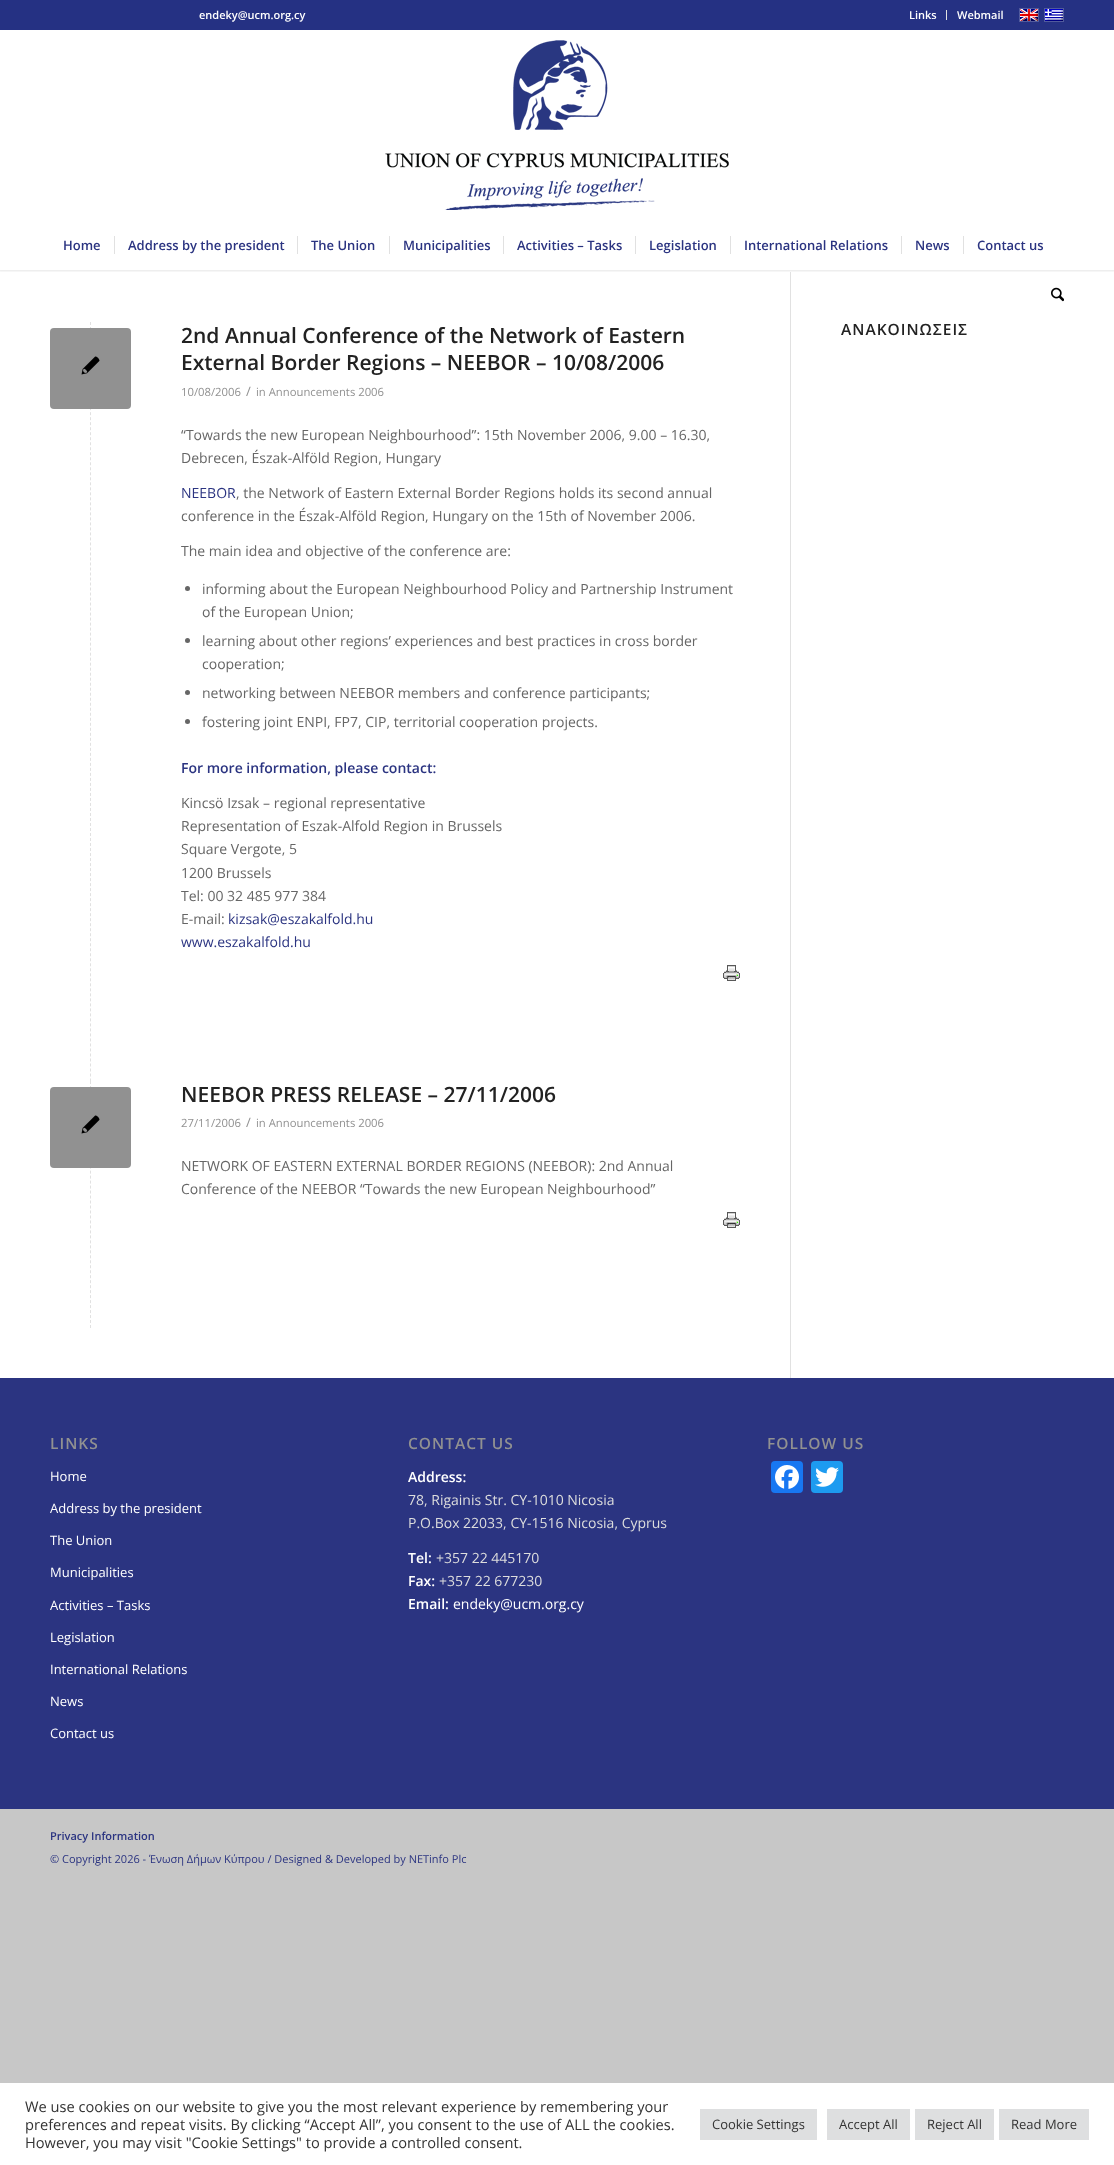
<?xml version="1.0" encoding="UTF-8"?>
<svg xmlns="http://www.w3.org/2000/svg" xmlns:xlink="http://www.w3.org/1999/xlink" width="1114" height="2165">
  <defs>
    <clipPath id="clip1"><rect x="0" y="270" width="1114" height="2" /></clipPath>
  </defs>
  <rect width="100%" height="100%" fill="#c7c7c7" />
  <rect y="30" width="1114" height="1348" fill="#ffffff" />
  <rect x="790" y="272" width="1" height="1106" fill="#e1e1e1" />
  <g clip-path="url(#clip1)">
    <rect x="-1" y="-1" width="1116" height="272" fill="#000000" fill-opacity="0.1" filter="blur(1px)" />
  </g>
  <rect width="1114" height="30" fill="#253183" />
  <rect x="946" y="10" width="1" height="10" fill="#e1e1e1" />
  <rect x="1019.5" y="8.5" width="19" height="13" fill="none" stroke="#515a9c" />
  <image x="1020" y="9" width="18" height="12" xlink:href="image1.png" />
  <rect x="1044.5" y="8.5" width="19" height="13" fill="none" stroke="#515a9c" />
  <image x="1045" y="9" width="18" height="12" xlink:href="image2.png" />
  <image x="385" y="40" width="344" height="170" xlink:href="image3.png" />
  <rect x="114" y="236" width="1" height="18" fill="#e1e1e1" />
  <rect x="297" y="236" width="1" height="18" fill="#e1e1e1" />
  <rect x="389" y="236" width="1" height="18" fill="#e1e1e1" />
  <rect x="503" y="236" width="1" height="18" fill="#e1e1e1" />
  <rect x="635" y="236" width="1" height="18" fill="#e1e1e1" />
  <rect x="730" y="236" width="1" height="18" fill="#e1e1e1" />
  <rect x="901" y="236" width="1" height="18" fill="#e1e1e1" />
  <rect x="963" y="236" width="1" height="18" fill="#e1e1e1" />
  <image x="1051" y="287" width="13" height="15" xlink:href="image4.png" />
  <path d="M 90.5 322 v 759" fill="none" stroke="#e1e1e1" stroke-dasharray="3 2.01" />
  <circle cx="187.5" cy="588.5" r="2.5" fill="#666666" />
  <circle cx="187.5" cy="640.5" r="2.5" fill="#666666" />
  <circle cx="187.5" cy="692.5" r="2.5" fill="#666666" />
  <circle cx="187.5" cy="721.5" r="2.5" fill="#666666" />
  <image x="723" y="965" width="17" height="16" xlink:href="image5.png" />
  <rect x="50" y="328" width="81" height="81" rx="4" fill="#919191" />
  <image x="81" y="356" width="19" height="19" xlink:href="image6.png" />
  <path d="M 90.5 1081 v 247" fill="none" stroke="#e1e1e1" stroke-dasharray="3 1.98" />
  <image x="723" y="1212" width="17" height="16" xlink:href="image5.png" />
  <rect x="50" y="1087" width="81" height="81" rx="4" fill="#919191" />
  <image x="81" y="1115" width="19" height="19" xlink:href="image6.png" />
  <rect y="1378" width="1114" height="431" fill="#2b3481" />
  <rect x="771" y="1461" width="32" height="32" rx="4" fill="#1877f2" />
  <image x="775" y="1465" width="24" height="24" xlink:href="image7.png" />
  <rect x="811" y="1461" width="32" height="32" rx="4" fill="#1d9bf0" />
  <image x="815" y="1467" width="24" height="20" xlink:href="image8.png" />
  <rect y="2083" width="1114" height="82" fill="#ffffff" />
  <rect x="700" y="2109" width="117" height="31" fill="#dedfe0" />
  <rect x="827" y="2109" width="83" height="31" fill="#dedfe0" />
  <rect x="915" y="2109" width="79" height="31" fill="#dedfe0" />
  <rect x="999" y="2109" width="90" height="31" fill="#dedfe0" />
  <text x="199" y="19" style="font-family: Open Sans; font-size: 11px; font-weight: 600; fill: #ffffff">endeky@ucm.org.cy</text>
  <text x="909" y="19" style="font-family: Open Sans; font-size: 11px; font-weight: 600; fill: #ffffff">Links</text>
  <text x="957" y="19" style="font-family: Open Sans; font-size: 11px; font-weight: 600; fill: #ffffff">Webmail</text>
  <text x="63" y="250" style="font-family: Open Sans; font-size: 13px; font-weight: 600; fill: #2b3481">Home</text>
  <text x="128" y="250" style="font-family: Open Sans; font-size: 13px; font-weight: 600; fill: #2b3481">Address by the president</text>
  <text x="311" y="250" style="font-family: Open Sans; font-size: 13px; font-weight: 600; fill: #2b3481">The Union</text>
  <text x="403" y="250" style="font-family: Open Sans; font-size: 13px; font-weight: 600; fill: #2b3481">Municipalities</text>
  <text x="517" y="250" style="font-family: Open Sans; font-size: 13px; font-weight: 600; fill: #2b3481">Activities – Tasks</text>
  <text x="649" y="250" style="font-family: Open Sans; font-size: 13px; font-weight: 600; fill: #2b3481">Legislation</text>
  <text x="744" y="250" style="font-family: Open Sans; font-size: 13px; font-weight: 600; fill: #2b3481">International Relations</text>
  <text x="915" y="250" style="font-family: Open Sans; font-size: 13px; font-weight: 600; fill: #2b3481">News</text>
  <text x="977" y="250" style="font-family: Open Sans; font-size: 13px; font-weight: 600; fill: #2b3481">Contact us</text>
  <text x="181" y="343" style="font-family: Open Sans; font-size: 21px; font-weight: 600; fill: #222222">2nd Annual Conference of the Network of Eastern</text>
  <text x="181" y="370" style="font-family: Open Sans; font-size: 21px; font-weight: 600; fill: #222222">External Border Regions – NEEBOR – 10/08/2006</text>
  <text x="181" y="396" style="font-family: Open Sans; font-size: 11.3px; fill: #919191">10/08/2006</text>
  <text x="246" y="396" style="font-family: Open Sans; font-size: 13px; fill: #919191">/</text>
  <text x="256" y="396" style="font-family: Open Sans; font-size: 11.3px; fill: #919191">in Announcements 2006</text>
  <text x="181" y="440" style="font-family: Open Sans; font-size: 14px; fill: #666666">“Towards the new European Neighbourhood”: 15th November 2006, 9.00 – 16.30,</text>
  <text x="181" y="463" style="font-family: Open Sans; font-size: 14px; fill: #666666">Debrecen, Észak-Alföld Region, Hungary</text>
  <text x="181" y="498" style="font-family: Open Sans; font-size: 14px; fill: #2b3481">NEEBOR</text>
  <text x="236" y="498" style="font-family: Open Sans; font-size: 14px; fill: #666666">, the Network of Eastern External Border Regions holds its second annual</text>
  <text x="181" y="521" style="font-family: Open Sans; font-size: 14px; fill: #666666">conference in the Észak-Alföld Region, Hungary on the 15th of November 2006.</text>
  <text x="181" y="556" style="font-family: Open Sans; font-size: 14px; fill: #666666">The main idea and objective of the conference are:</text>
  <text x="202" y="594" style="font-family: Open Sans; font-size: 14px; fill: #666666">informing about the European Neighbourhood Policy and Partnership Instrument</text>
  <text x="202" y="617" style="font-family: Open Sans; font-size: 14px; fill: #666666">of the European Union;</text>
  <text x="202" y="646" style="font-family: Open Sans; font-size: 14px; fill: #666666">learning about other regions’ experiences and best practices in cross border</text>
  <text x="202" y="669" style="font-family: Open Sans; font-size: 14px; fill: #666666">cooperation;</text>
  <text x="202" y="698" style="font-family: Open Sans; font-size: 14px; fill: #666666">networking between NEEBOR members and conference participants;</text>
  <text x="202" y="727" style="font-family: Open Sans; font-size: 14px; fill: #666666">fostering joint ENPI, FP7, CIP, territorial cooperation projects.</text>
  <text x="181" y="773" style="font-family: Open Sans; font-size: 14px; font-weight: 600; fill: #2b3481">For more information, please contact:</text>
  <text x="181" y="808" style="font-family: Open Sans; font-size: 14px; fill: #666666">Kincsö Izsak – regional representative</text>
  <text x="181" y="831" style="font-family: Open Sans; font-size: 14px; fill: #666666">Representation of Eszak-Alfold Region in Brussels</text>
  <text x="181" y="854" style="font-family: Open Sans; font-size: 14px; fill: #666666">Square Vergote, 5</text>
  <text x="181" y="878" style="font-family: Open Sans; font-size: 14px; fill: #666666">1200 Brussels</text>
  <text x="181" y="901" style="font-family: Open Sans; font-size: 14px; fill: #666666">Tel: 00 32 485 977 384</text>
  <text x="181" y="924" style="font-family: Open Sans; font-size: 14px; fill: #666666">E-mail:</text>
  <text x="228" y="924" style="font-family: Open Sans; font-size: 14px; fill: #2b3481">kizsak@eszakalfold.hu</text>
  <text x="181" y="947" style="font-family: Open Sans; font-size: 14px; fill: #2b3481">www.eszakalfold.hu</text>
  <text x="181" y="1102" style="font-family: Open Sans; font-size: 21px; font-weight: 600; fill: #222222">NEEBOR PRESS RELEASE – 27/11/2006</text>
  <text x="181" y="1127" style="font-family: Open Sans; font-size: 11.3px; fill: #919191">27/11/2006</text>
  <text x="246" y="1127" style="font-family: Open Sans; font-size: 13px; fill: #919191">/</text>
  <text x="256" y="1127" style="font-family: Open Sans; font-size: 11.3px; fill: #919191">in Announcements 2006</text>
  <text x="181" y="1171" style="font-family: Open Sans; font-size: 14px; fill: #666666">NETWORK OF EASTERN EXTERNAL BORDER REGIONS (NEEBOR): 2nd Annual</text>
  <text x="181" y="1194" style="font-family: Open Sans; font-size: 14px; fill: #666666">Conference of the NEEBOR “Towards the new European Neighbourhood”</text>
  <text x="841" y="335" style="font-family: Open Sans; font-size: 15.5px; font-weight: 600; letter-spacing: 1px; fill: #222222">ΑΝΑΚΟΙΝΩΣΕΙΣ</text>
  <text x="50" y="1449" style="font-family: Open Sans; font-size: 15.5px; font-weight: 600; letter-spacing: 1px; fill: #919191">LINKS</text>
  <text x="50" y="1481" style="font-family: Open Sans; font-size: 13px; fill: #ffffff">Home</text>
  <text x="50" y="1513" style="font-family: Open Sans; font-size: 13px; fill: #ffffff">Address by the president</text>
  <text x="50" y="1545" style="font-family: Open Sans; font-size: 13px; fill: #ffffff">The Union</text>
  <text x="50" y="1577" style="font-family: Open Sans; font-size: 13px; fill: #ffffff">Municipalities</text>
  <text x="50" y="1610" style="font-family: Open Sans; font-size: 13px; fill: #ffffff">Activities – Tasks</text>
  <text x="50" y="1642" style="font-family: Open Sans; font-size: 13px; fill: #ffffff">Legislation</text>
  <text x="50" y="1674" style="font-family: Open Sans; font-size: 13px; fill: #ffffff">International Relations</text>
  <text x="50" y="1706" style="font-family: Open Sans; font-size: 13px; fill: #ffffff">News</text>
  <text x="50" y="1738" style="font-family: Open Sans; font-size: 13px; fill: #ffffff">Contact us</text>
  <text x="408" y="1449" style="font-family: Open Sans; font-size: 15.5px; font-weight: 600; letter-spacing: 1px; fill: #919191">CONTACT US</text>
  <text x="408" y="1482" style="font-family: Open Sans; font-size: 14px; font-weight: 600; fill: #ffffff">Address:</text>
  <text x="408" y="1505" style="font-family: Open Sans; font-size: 14px; fill: #dddddd">78, Rigainis Str. CY-1010 Nicosia</text>
  <text x="408" y="1528" style="font-family: Open Sans; font-size: 14px; fill: #dddddd">P.O.Box 22033, CY-1516 Nicosia, Cyprus</text>
  <text x="408" y="1563" style="font-family: Open Sans; font-size: 14px; font-weight: 600; fill: #ffffff">Tel:</text>
  <text x="436" y="1563" style="font-family: Open Sans; font-size: 14px; fill: #dddddd">+357 22 445170</text>
  <text x="408" y="1586" style="font-family: Open Sans; font-size: 14px; font-weight: 600; fill: #ffffff">Fax:</text>
  <text x="439" y="1586" style="font-family: Open Sans; font-size: 14px; fill: #dddddd">+357 22 677230</text>
  <text x="408" y="1609" style="font-family: Open Sans; font-size: 14px; font-weight: 600; fill: #ffffff">Email:</text>
  <text x="453" y="1609" style="font-family: Open Sans; font-size: 14px; fill: #ffffff">endeky@ucm.org.cy</text>
  <text x="767" y="1449" style="font-family: Open Sans; font-size: 15.5px; font-weight: 600; letter-spacing: 1px; fill: #919191">FOLLOW US</text>
  <text x="50" y="1840" style="font-family: Open Sans; font-size: 11px; font-weight: 600; fill: #2b3481">Privacy Information</text>
  <text x="50" y="1863" style="font-family: Open Sans; font-size: 11px; fill: #2b3481">© Copyright 2026 - Ένωση Δήμων Κύπρου / Designed &amp; Developed by NETinfo Plc</text>
  <text x="25" y="2112" style="font-family: Open Sans; font-size: 14.65px; fill: #333333">We use cookies on our website to give you the most relevant experience by remembering your</text>
  <text x="25" y="2130" style="font-family: Open Sans; font-size: 14.65px; fill: #333333">preferences and repeat visits. By clicking “Accept All”, you consent to the use of ALL the cookies.</text>
  <text x="25" y="2148" style="font-family: Open Sans; font-size: 14.65px; fill: #333333">However, you may visit "Cookie Settings" to provide a controlled consent.</text>
  <text x="712" y="2129" style="font-family: Open Sans; font-size: 13px; fill: #333333">Cookie Settings</text>
  <text x="839" y="2129" style="font-family: Open Sans; font-size: 13px; fill: #333333">Accept All</text>
  <text x="927" y="2129" style="font-family: Open Sans; font-size: 13px; fill: #333333">Reject All</text>
  <text x="1011" y="2129" style="font-family: Open Sans; font-size: 13px; fill: #333333">Read More</text>
</svg>
